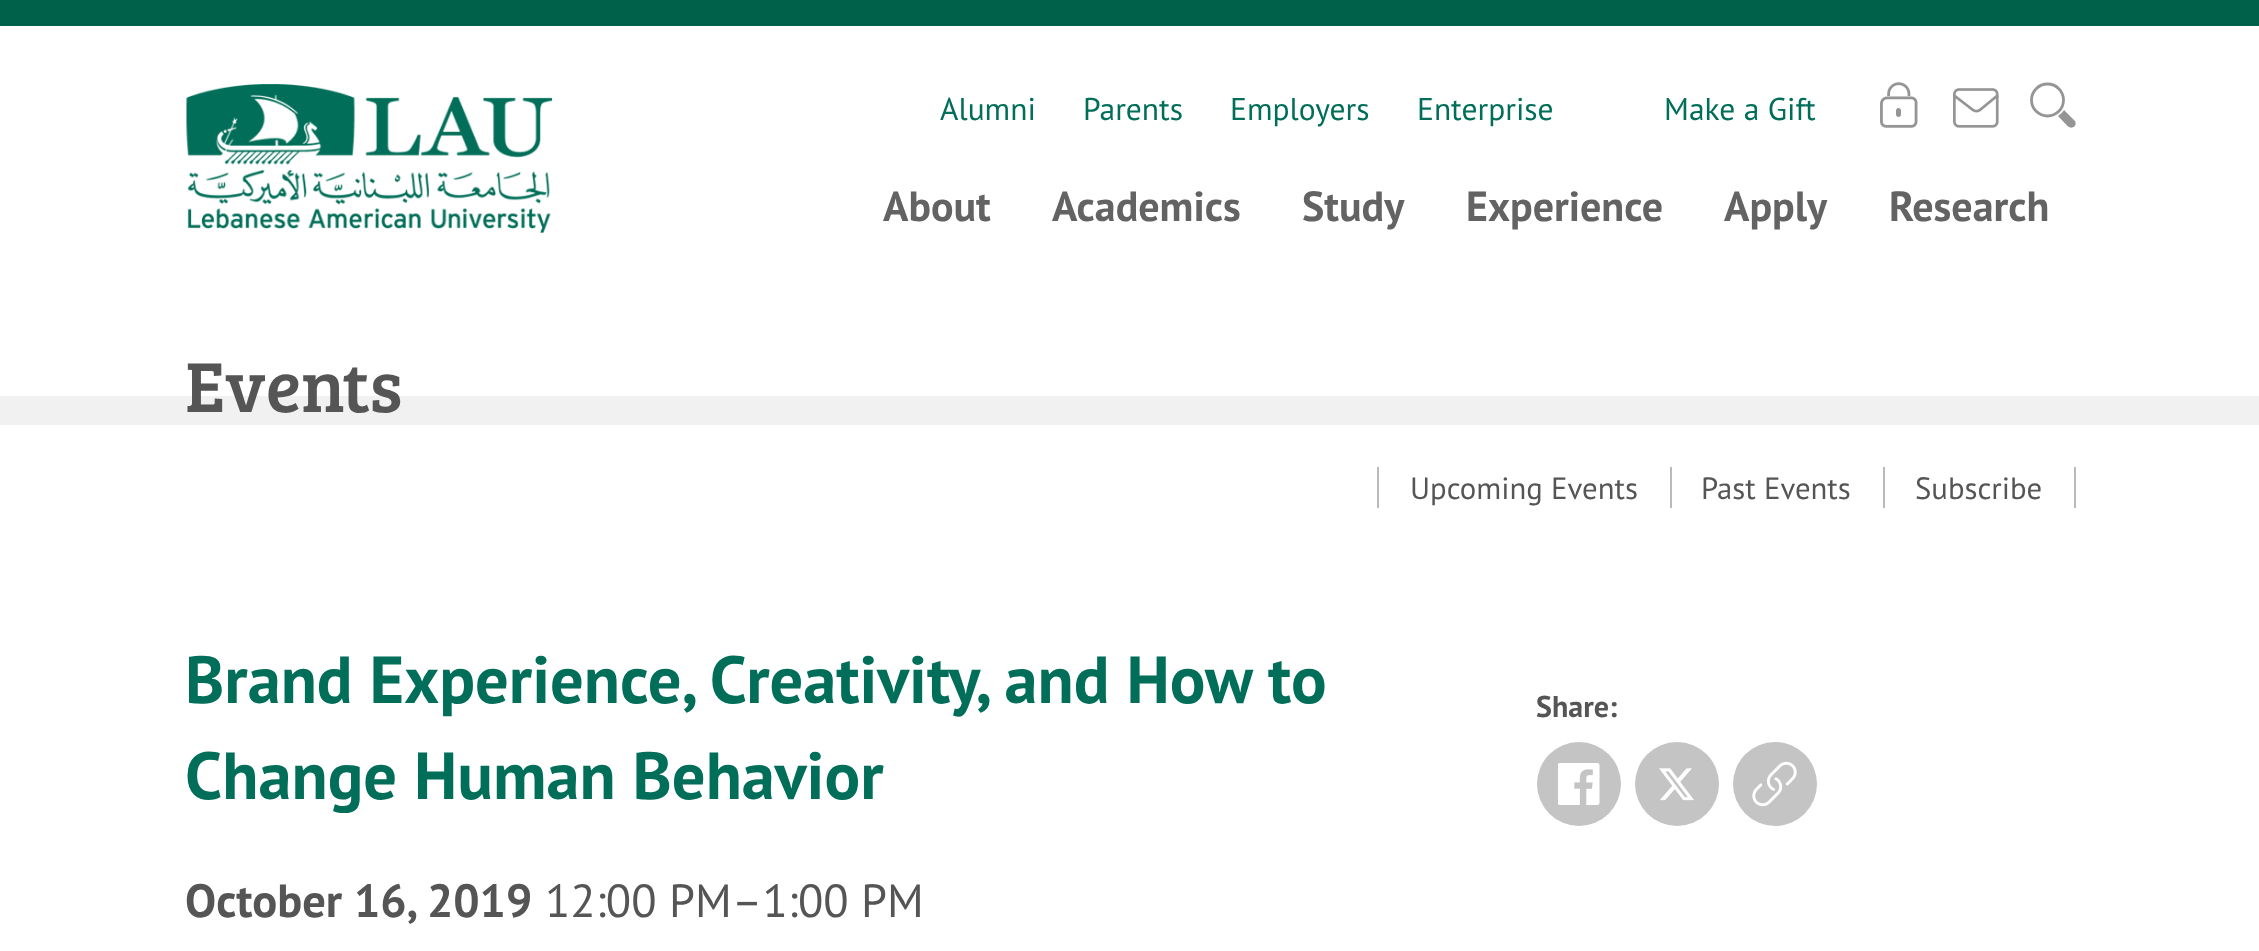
<?xml version="1.0" encoding="UTF-8"?>
<svg xmlns="http://www.w3.org/2000/svg" xmlns:xlink="http://www.w3.org/1999/xlink" width="2259" height="951">
  <rect width="100%" height="100%" fill="#ffffff" />
  <rect width="2259" height="26" fill="#00614b" />
  <image x="186" y="84" width="367" height="149" xlink:href="image1.png" />
  <image x="1880" y="82" width="38" height="46" xlink:href="image2.png" />
  <image x="1953" y="88" width="46" height="40" xlink:href="image3.png" />
  <path d="M 2074.5 120.5 l -10.5 -10.5 c -1.5 2.5 -4 4.5 -6 6 l 10 10.5 c 2 1.5 4.5 1.5 6.5 0 c 1.5 -2 1.5 -4.5 0 -6 z" fill="#959595" />
  <circle cx="2047.5" cy="100" r="16" fill="none" stroke="#959595" stroke-width="2.8" />
  <rect y="396" width="2259" height="29" fill="#f1f1f1" />
  <rect x="1670" y="467" width="2" height="41" fill="#bababa" />
  <rect x="1377" y="467" width="2" height="41" fill="#bababa" />
  <rect x="1883" y="467" width="2" height="41" fill="#bababa" />
  <rect x="2074" y="467" width="2" height="41" fill="#bababa" />
  <circle cx="1579" cy="784" r="42" fill="#c4c4c4" />
  <image x="1558" y="763" width="42" height="42" xlink:href="image4.png" />
  <circle cx="1677" cy="784" r="42" fill="#c4c4c4" />
  <image x="1659" y="768" width="35" height="33" xlink:href="image5.png" />
  <circle cx="1775" cy="784" r="42" fill="#c4c4c4" />
  <image x="1752" y="761" width="45" height="46" xlink:href="image6.png" />
  <text x="940" y="120" style="font-family: PT Sans; font-size: 31.5px; fill: #006e58">Alumni</text>
  <text x="1083" y="120" style="font-family: PT Sans; font-size: 31.5px; fill: #006e58">Parents</text>
  <text x="1230" y="120" style="font-family: PT Sans; font-size: 31.5px; fill: #006e58">Employers</text>
  <text x="1417" y="120" style="font-family: PT Sans; font-size: 31.5px; fill: #006e58">Enterprise</text>
  <text x="1664" y="120" style="font-family: PT Sans; font-size: 31.5px; fill: #006e58">Make a Gift</text>
  <text x="883" y="221" style="font-family: PT Sans; font-size: 42px; font-weight: bold; fill: #636363">About</text>
  <text x="1052" y="221" style="font-family: PT Sans; font-size: 42px; font-weight: bold; fill: #636363">Academics</text>
  <text x="1302" y="221" style="font-family: PT Sans; font-size: 42px; font-weight: bold; fill: #636363">Study</text>
  <text x="1466" y="221" style="font-family: PT Sans; font-size: 42px; font-weight: bold; fill: #636363">Experience</text>
  <text x="1724" y="221" style="font-family: PT Sans; font-size: 42px; font-weight: bold; fill: #636363">Apply</text>
  <text x="1889" y="221" style="font-family: PT Sans; font-size: 42px; font-weight: bold; fill: #636363">Research</text>
  <text x="185" y="412" style="font-family: Bree Serif; font-size: 73px; fill: #555555">Events</text>
  <text x="1410" y="499" style="font-family: PT Sans; font-size: 30.75px; fill: #555555">Upcoming Events</text>
  <text x="1701" y="499" style="font-family: PT Sans; font-size: 30.75px; fill: #555555">Past Events</text>
  <text x="1915" y="499" style="font-family: PT Sans; font-size: 30.75px; fill: #555555">Subscribe</text>
  <text x="185" y="703" style="font-family: PT Sans; font-size: 66.5px; font-weight: bold; fill: #006e58">Brand Experience, Creativity, and How to</text>
  <text x="185" y="799" style="font-family: PT Sans; font-size: 66.5px; font-weight: bold; fill: #006e58">Change Human Behavior</text>
  <text x="185" y="917" style="font-family: PT Sans; font-size: 46.5px; font-weight: bold; fill: #555555">October 16, 2019</text>
  <text x="545" y="917" style="font-family: PT Sans; font-size: 46.5px; fill: #555555">12:00 PM–1:00 PM</text>
  <text x="1536" y="717" style="font-family: PT Sans; font-size: 30px; font-weight: bold; fill: #555555">Share:</text>
</svg>
